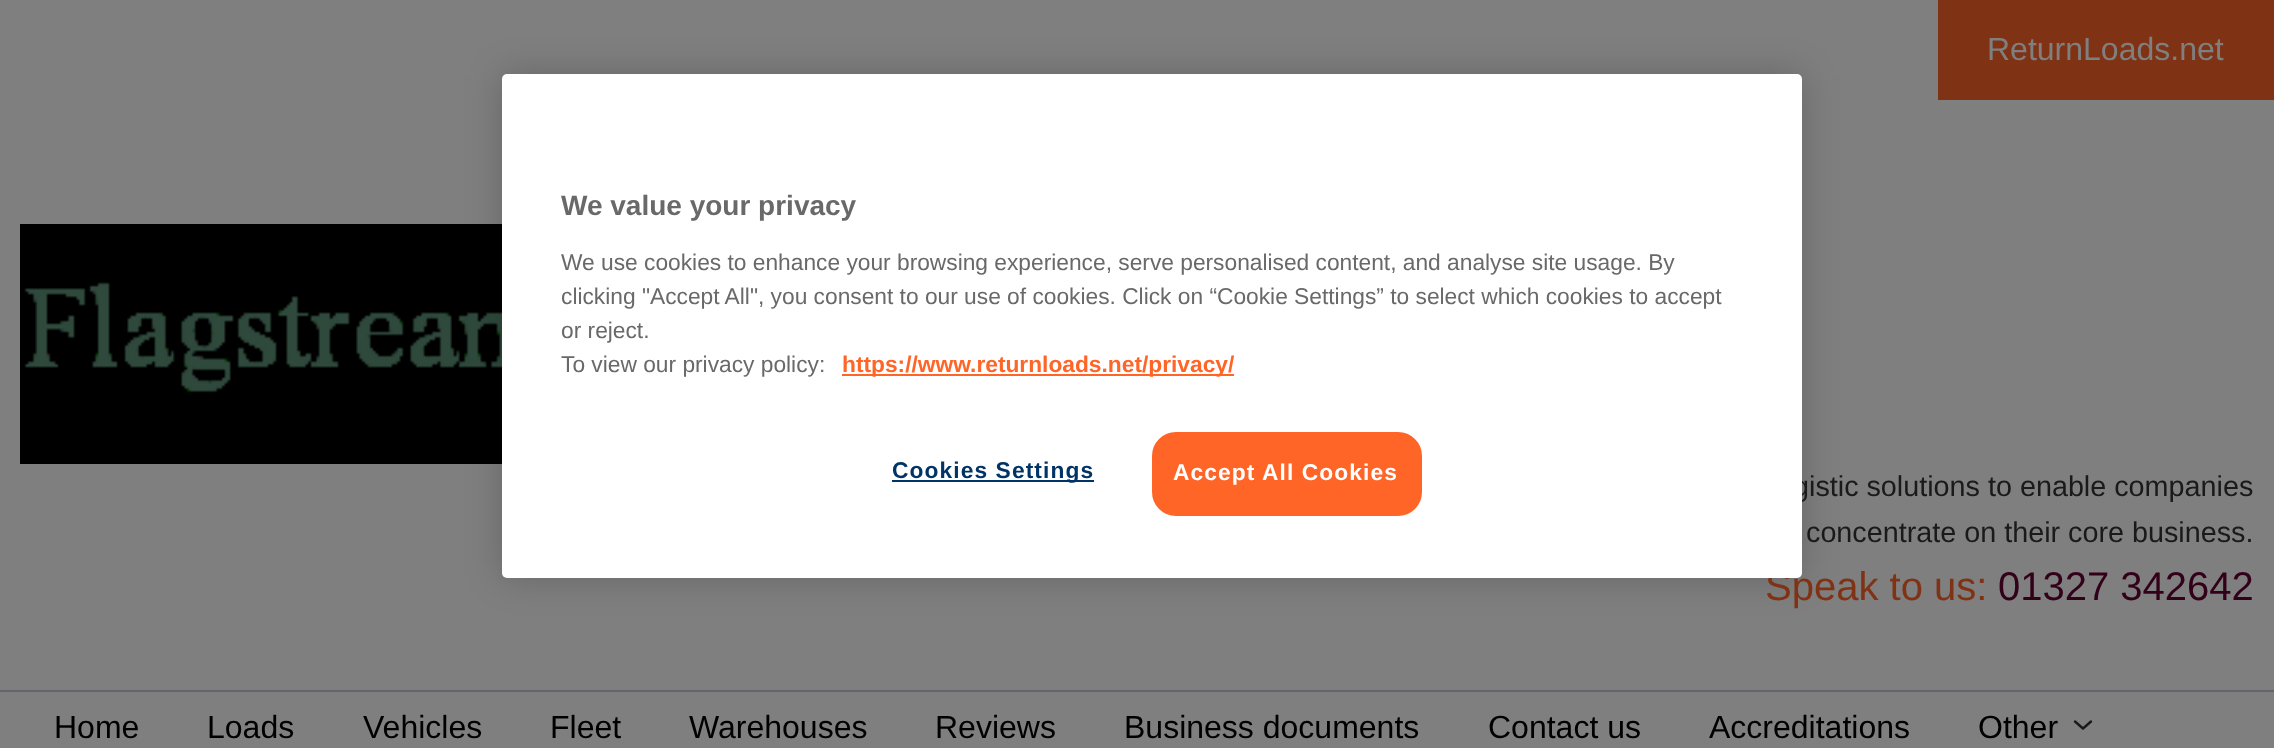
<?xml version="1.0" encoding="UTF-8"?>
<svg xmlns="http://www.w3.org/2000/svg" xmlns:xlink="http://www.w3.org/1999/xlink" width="2274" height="748">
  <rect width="100%" height="100%" fill="#7f7f7f" />
  <rect x="1938" width="336" height="100" fill="#803314" />
  <image x="20" y="224" width="482" height="240" xlink:href="image1.png" />
  <rect y="690" width="2274" height="2" fill="#63676c" />
  <path d="M 2075 721.5 l 8 7 l 8 -7" fill="none" stroke="#1a1a1a" stroke-width="2.4" stroke-linecap="round" stroke-linejoin="round" />
  <rect x="502" y="74" width="1300" height="504" rx="5" fill="#000000" fill-opacity="0.2" filter="blur(18px)" />
  <text x="1987" y="60" style="font-family: Liberation Sans; font-size: 32px; fill: #7f7f7f">ReturnLoads.net</text>
  <text x="1793" y="496" style="font-family: Liberation Sans; font-size: 28.75px; fill: #1a1a1a">gistic solutions to enable companies</text>
  <text x="1806" y="542" style="font-family: Liberation Sans; font-size: 28.75px; fill: #1a1a1a">concentrate on their core business.</text>
  <text x="1765" y="600" style="font-family: Liberation Sans; font-size: 40px; fill: #803314">Speak to us:</text>
  <text x="1998" y="600" style="font-family: Liberation Sans; font-size: 40px; fill: #33001a">01327 342642</text>
  <text x="54" y="738" style="font-family: Liberation Sans; font-size: 32px; fill: #000000">Home</text>
  <text x="207" y="738" style="font-family: Liberation Sans; font-size: 32px; fill: #000000">Loads</text>
  <text x="363" y="738" style="font-family: Liberation Sans; font-size: 32px; fill: #000000">Vehicles</text>
  <text x="550" y="738" style="font-family: Liberation Sans; font-size: 32px; fill: #000000">Fleet</text>
  <text x="689" y="738" style="font-family: Liberation Sans; font-size: 32px; fill: #000000">Warehouses</text>
  <text x="935" y="738" style="font-family: Liberation Sans; font-size: 32px; fill: #000000">Reviews</text>
  <text x="1124" y="738" style="font-family: Liberation Sans; font-size: 32px; fill: #000000">Business documents</text>
  <text x="1488" y="738" style="font-family: Liberation Sans; font-size: 32px; fill: #000000">Contact us</text>
  <text x="1709" y="738" style="font-family: Liberation Sans; font-size: 32px; fill: #000000">Accreditations</text>
  <text x="1978" y="738" style="font-family: Liberation Sans; font-size: 32px; fill: #000000">Other</text>
  <rect x="502" y="74" width="1300" height="504" rx="5" fill="#ffffff" />
  <text x="561" y="215" style="font-family: Liberation Sans; font-size: 28px; font-weight: bold; fill: #696969">We value your privacy</text>
  <text x="561" y="270" style="font-family: Liberation Sans; font-size: 22.75px; fill: #696969">We use cookies to enhance your browsing experience, serve personalised content, and analyse site usage. By</text>
  <text x="561" y="304" style="font-family: Liberation Sans; font-size: 22.75px; fill: #696969">clicking "Accept All", you consent to our use of cookies. Click on “Cookie Settings” to select which cookies to accept</text>
  <text x="561" y="338" style="font-family: Liberation Sans; font-size: 22.75px; fill: #696969">or reject.</text>
  <text x="561" y="372" style="font-family: Liberation Sans; font-size: 22.75px; fill: #696969">To view our privacy policy:</text>
  <rect x="842" y="374" width="392" height="2" fill="#ff6527" />
  <text x="842" y="372" style="font-family: Liberation Sans; font-size: 22.75px; font-weight: bold; fill: #ff6527">https://www.returnloads.net/privacy/</text>
  <rect x="892" y="480" width="202" height="2" fill="#003366" />
  <text x="892" y="478" style="font-family: Liberation Sans; font-size: 22.75px; font-weight: bold; letter-spacing: 1.1px; fill: #003366">Cookies Settings</text>
  <rect x="1153" y="433" width="268" height="82" rx="23" fill="#ff6527" stroke="#ff6527" stroke-width="2" />
  <text x="1173" y="480" style="font-family: Liberation Sans; font-size: 22.75px; font-weight: bold; letter-spacing: 1.1px; fill: #ffffff">Accept All Cookies</text>
</svg>
